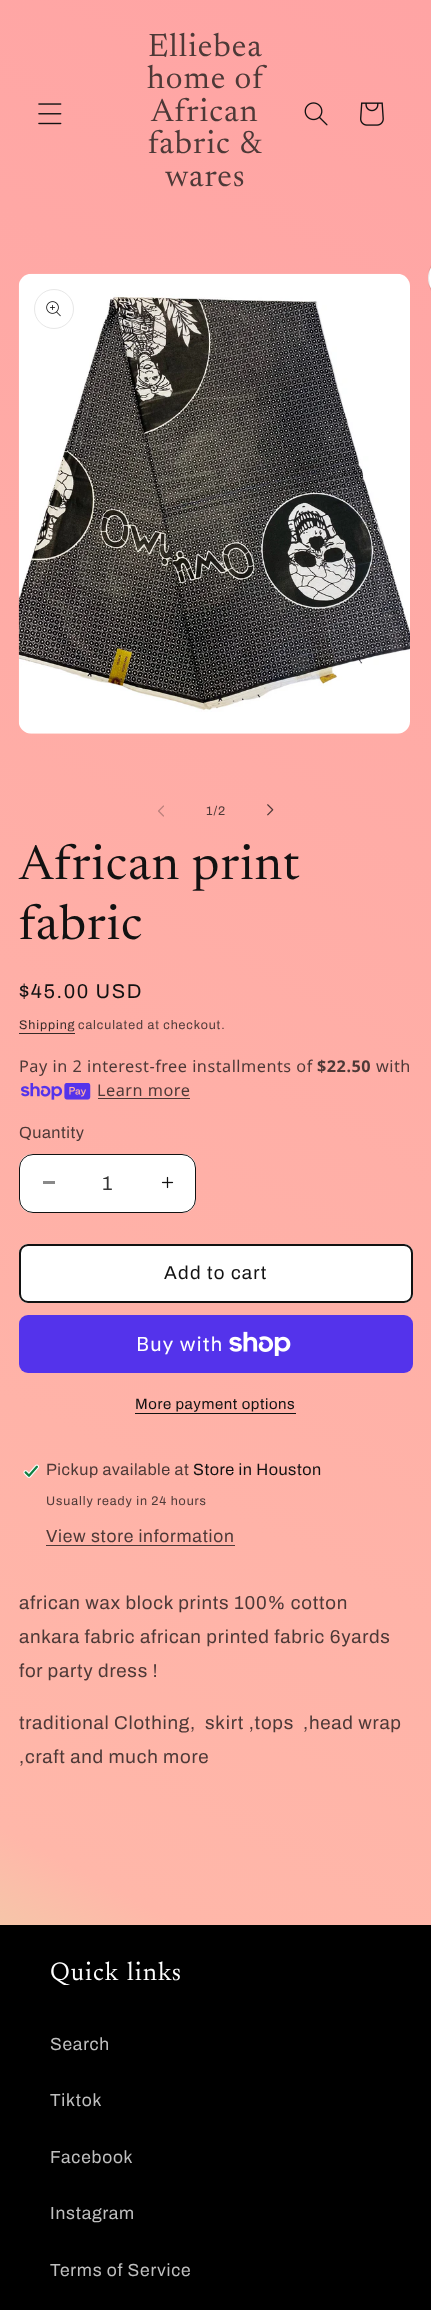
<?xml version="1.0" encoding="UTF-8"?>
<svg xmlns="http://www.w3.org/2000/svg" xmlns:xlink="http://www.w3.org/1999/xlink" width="431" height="2310">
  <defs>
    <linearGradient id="g1" gradientUnits="userSpaceOnUse" x1="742" y1="165" x2="-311" y2="2145"><stop offset="0" stop-color="#ffa4a4" /><stop offset="0.81" stop-color="#ffb7a9" /><stop offset="1" stop-color="#d2ffa9" /></linearGradient>
  </defs>
  <rect width="100%" height="100%" fill="#ffffff" />
  <rect width="431" height="1925" fill="url(#g1)" />
  <image x="38" y="103" width="24" height="22" xlink:href="image1.png" />
  <image x="304" y="102" width="24" height="24" xlink:href="image2.png" />
  <image x="360" y="102" width="24" height="24" xlink:href="image3.png" />
  <image x="18" y="273" width="392" height="461" xlink:href="image4.png" />
  <circle cx="54" cy="309" r="19.5" fill="none" stroke="#e7e7e7" />
  <image x="46" y="301" width="15" height="16" xlink:href="image5.png" />
  <path d="M 448 258 h -17 v 40 h 17 c -11 0 -20 -9 -20 -20 c 0 -11 9 -20 20 -20 z" fill="#ffffff" />
  <rect x="428.5" y="258.5" width="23" height="39" rx="19.5" fill="none" stroke="#121212" stroke-opacity="0.1" />
  <image x="158" y="805" width="6" height="12" xlink:href="image6.png" />
  <image x="267" y="804" width="7" height="12" xlink:href="image7.png" />
  <rect x="19" y="1033" width="56" height="1" fill="#362a28" />
  <image x="21" y="1083" width="70" height="17" xlink:href="image8.png" />
  <rect x="98" y="1098" width="92" height="1" fill="#4d3937" />
  <rect x="19" y="1154" width="177" height="59" rx="14" fill="#ffffff" />
  <rect x="43" y="1181" width="12" height="3" fill="#898989" />
  <image x="161" y="1176" width="13" height="13" xlink:href="image9.png" />
  <rect x="19.5" y="1154.5" width="176" height="58" rx="13.5" fill="none" stroke="#121212" />
  <rect x="19" y="1244" width="394" height="59" rx="9" fill="#ffffff" />
  <rect x="19.5" y="1244.5" width="393" height="58" rx="8.5" fill="none" stroke="#ffffff" />
  <rect x="20" y="1245" width="392" height="57" rx="8" fill="none" stroke="#121212" stroke-width="2" />
  <rect x="19" y="1315" width="394" height="58" rx="9" fill="#5433eb" />
  <image x="229" y="1331" width="62" height="25" xlink:href="image10.png" />
  <rect x="135" y="1413" width="161" height="1" fill="#121212" />
  <image x="23" y="1464" width="17" height="14" xlink:href="image11.png" />
  <rect x="46" y="1545" width="189" height="1" fill="#4d3a38" />
  <rect y="1925" width="431" height="385" fill="#000000" />
  <text x="148" y="56" style="font-family: 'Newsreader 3'; font-size: 32.5px; letter-spacing: 1px; fill: #4d3937">Elliebea</text>
  <text x="147" y="88" style="font-family: 'Newsreader 3'; font-size: 32.5px; letter-spacing: 1px; fill: #4d3937">home of</text>
  <text x="151" y="121" style="font-family: 'Newsreader 3'; font-size: 32.5px; letter-spacing: 1px; fill: #4d3937">African</text>
  <text x="148" y="153" style="font-family: 'Newsreader 3'; font-size: 32.5px; letter-spacing: 1px; fill: #4d3937">fabric &amp;</text>
  <text x="165" y="186" style="font-family: 'Newsreader 3'; font-size: 32.5px; letter-spacing: 1px; fill: #4d3937">wares</text>
  <text x="206" y="815" style="font-family: Archivo; font-size: 12.5px; letter-spacing: 0.9px; fill: #4d3937">1/2</text>
  <text x="19" y="879" style="font-family: Newsreader; font-size: 48.75px; letter-spacing: 1px; fill: #121212">African print</text>
  <text x="19" y="939" style="font-family: Newsreader; font-size: 48.75px; letter-spacing: 1px; fill: #121212">fabric</text>
  <text x="19" y="998" style="font-family: Archivo; font-size: 20px; letter-spacing: 1.6px; fill: #121212">$45.00 USD</text>
  <text x="19" y="1029" style="font-family: Archivo; font-size: 12.5px; letter-spacing: 0.9px; fill: #362a28">Shipping</text>
  <text x="78" y="1029" style="font-family: Archivo; font-size: 12.5px; letter-spacing: 0.9px; fill: #4d3937">calculated at checkout.</text>
  <text x="19" y="1072" style="font-family: Noto Sans; font-size: 16.25px; letter-spacing: 0.5px; fill: #4d3937">Pay in 2 interest-free installments of</text>
  <text x="317" y="1072" style="font-family: Noto Sans; font-size: 16.25px; font-weight: bold; letter-spacing: 0.5px; fill: #4d3937">$22.50</text>
  <text x="376" y="1072" style="font-family: Noto Sans; font-size: 16.25px; letter-spacing: 0.5px; fill: #4d3937">with</text>
  <text x="97" y="1096" style="font-family: Noto Sans; font-size: 16.25px; letter-spacing: 0.5px; fill: #4d3937">Learn more</text>
  <text x="19" y="1138" style="font-family: Archivo; font-size: 16.25px; letter-spacing: 0.5px; fill: #4d3937">Quantity</text>
  <text x="102" y="1190" style="font-family: Archivo; font-size: 20px; fill: #363636">1</text>
  <text x="164" y="1279" style="font-family: Archivo; font-size: 18.75px; letter-spacing: 1.25px; fill: #121212">Add to cart</text>
  <text x="136" y="1351" style="font-family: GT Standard; font-size: 20px; letter-spacing: 0.75px; fill: #ffffff">Buy with</text>
  <text x="135" y="1409" style="font-family: Archivo; font-size: 15px; letter-spacing: 0.6px; fill: #121212">More payment options</text>
  <text x="46" y="1475" style="font-family: Archivo; font-size: 16.25px; letter-spacing: 0.5px; fill: #4d3937">Pickup available at</text>
  <text x="193" y="1475" style="font-family: Archivo; font-size: 16.25px; letter-spacing: 0.5px; fill: #121212">Store in Houston</text>
  <text x="46" y="1505" style="font-family: Archivo; font-size: 12.5px; letter-spacing: 0.9px; fill: #4d3937">Usually ready in 24 hours</text>
  <text x="46" y="1542" style="font-family: Archivo; font-size: 17.5px; letter-spacing: 0.75px; fill: #4d3937">View store information</text>
  <text x="19" y="1609" style="font-family: Archivo; font-size: 18.75px; letter-spacing: 0.75px; fill: #4d3937">african wax block prints 100% cotton</text>
  <text x="19" y="1643" style="font-family: Archivo; font-size: 18.75px; letter-spacing: 0.75px; fill: #4d3937">ankara fabric african printed fabric 6yards</text>
  <text x="19" y="1677" style="font-family: Archivo; font-size: 18.75px; letter-spacing: 0.75px; fill: #4d3937">for party dress !</text>
  <text x="19" y="1729" style="font-family: Archivo; font-size: 18.75px; letter-spacing: 0.75px; fill: #4d3937">traditional Clothing,</text>
  <text x="205" y="1729" style="font-family: Archivo; font-size: 18.75px; letter-spacing: 0.75px; fill: #4d3937">skirt ,tops</text>
  <text x="303" y="1729" style="font-family: Archivo; font-size: 18.75px; letter-spacing: 0.75px; fill: #4d3937">,head wrap</text>
  <text x="19" y="1763" style="font-family: Archivo; font-size: 18.75px; letter-spacing: 0.75px; fill: #4d3937">,craft and much more</text>
  <text x="50" y="1980" word-spacing="1" style="font-family: 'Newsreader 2'; font-size: 26px; letter-spacing: 1px; fill: #ffffff">Quick links</text>
  <text x="50" y="2050" style="font-family: Archivo; font-size: 17.5px; letter-spacing: 0.75px; fill: #bfbfbf">Search</text>
  <text x="50" y="2106" style="font-family: Archivo; font-size: 17.5px; letter-spacing: 0.75px; fill: #bfbfbf">Tiktok</text>
  <text x="50" y="2163" style="font-family: Archivo; font-size: 17.5px; letter-spacing: 0.75px; fill: #bfbfbf">Facebook</text>
  <text x="50" y="2219" style="font-family: Archivo; font-size: 17.5px; letter-spacing: 0.75px; fill: #bfbfbf">Instagram</text>
  <text x="50" y="2276" style="font-family: Archivo; font-size: 17.5px; letter-spacing: 0.75px; fill: #bfbfbf">Terms of Service</text>
</svg>
